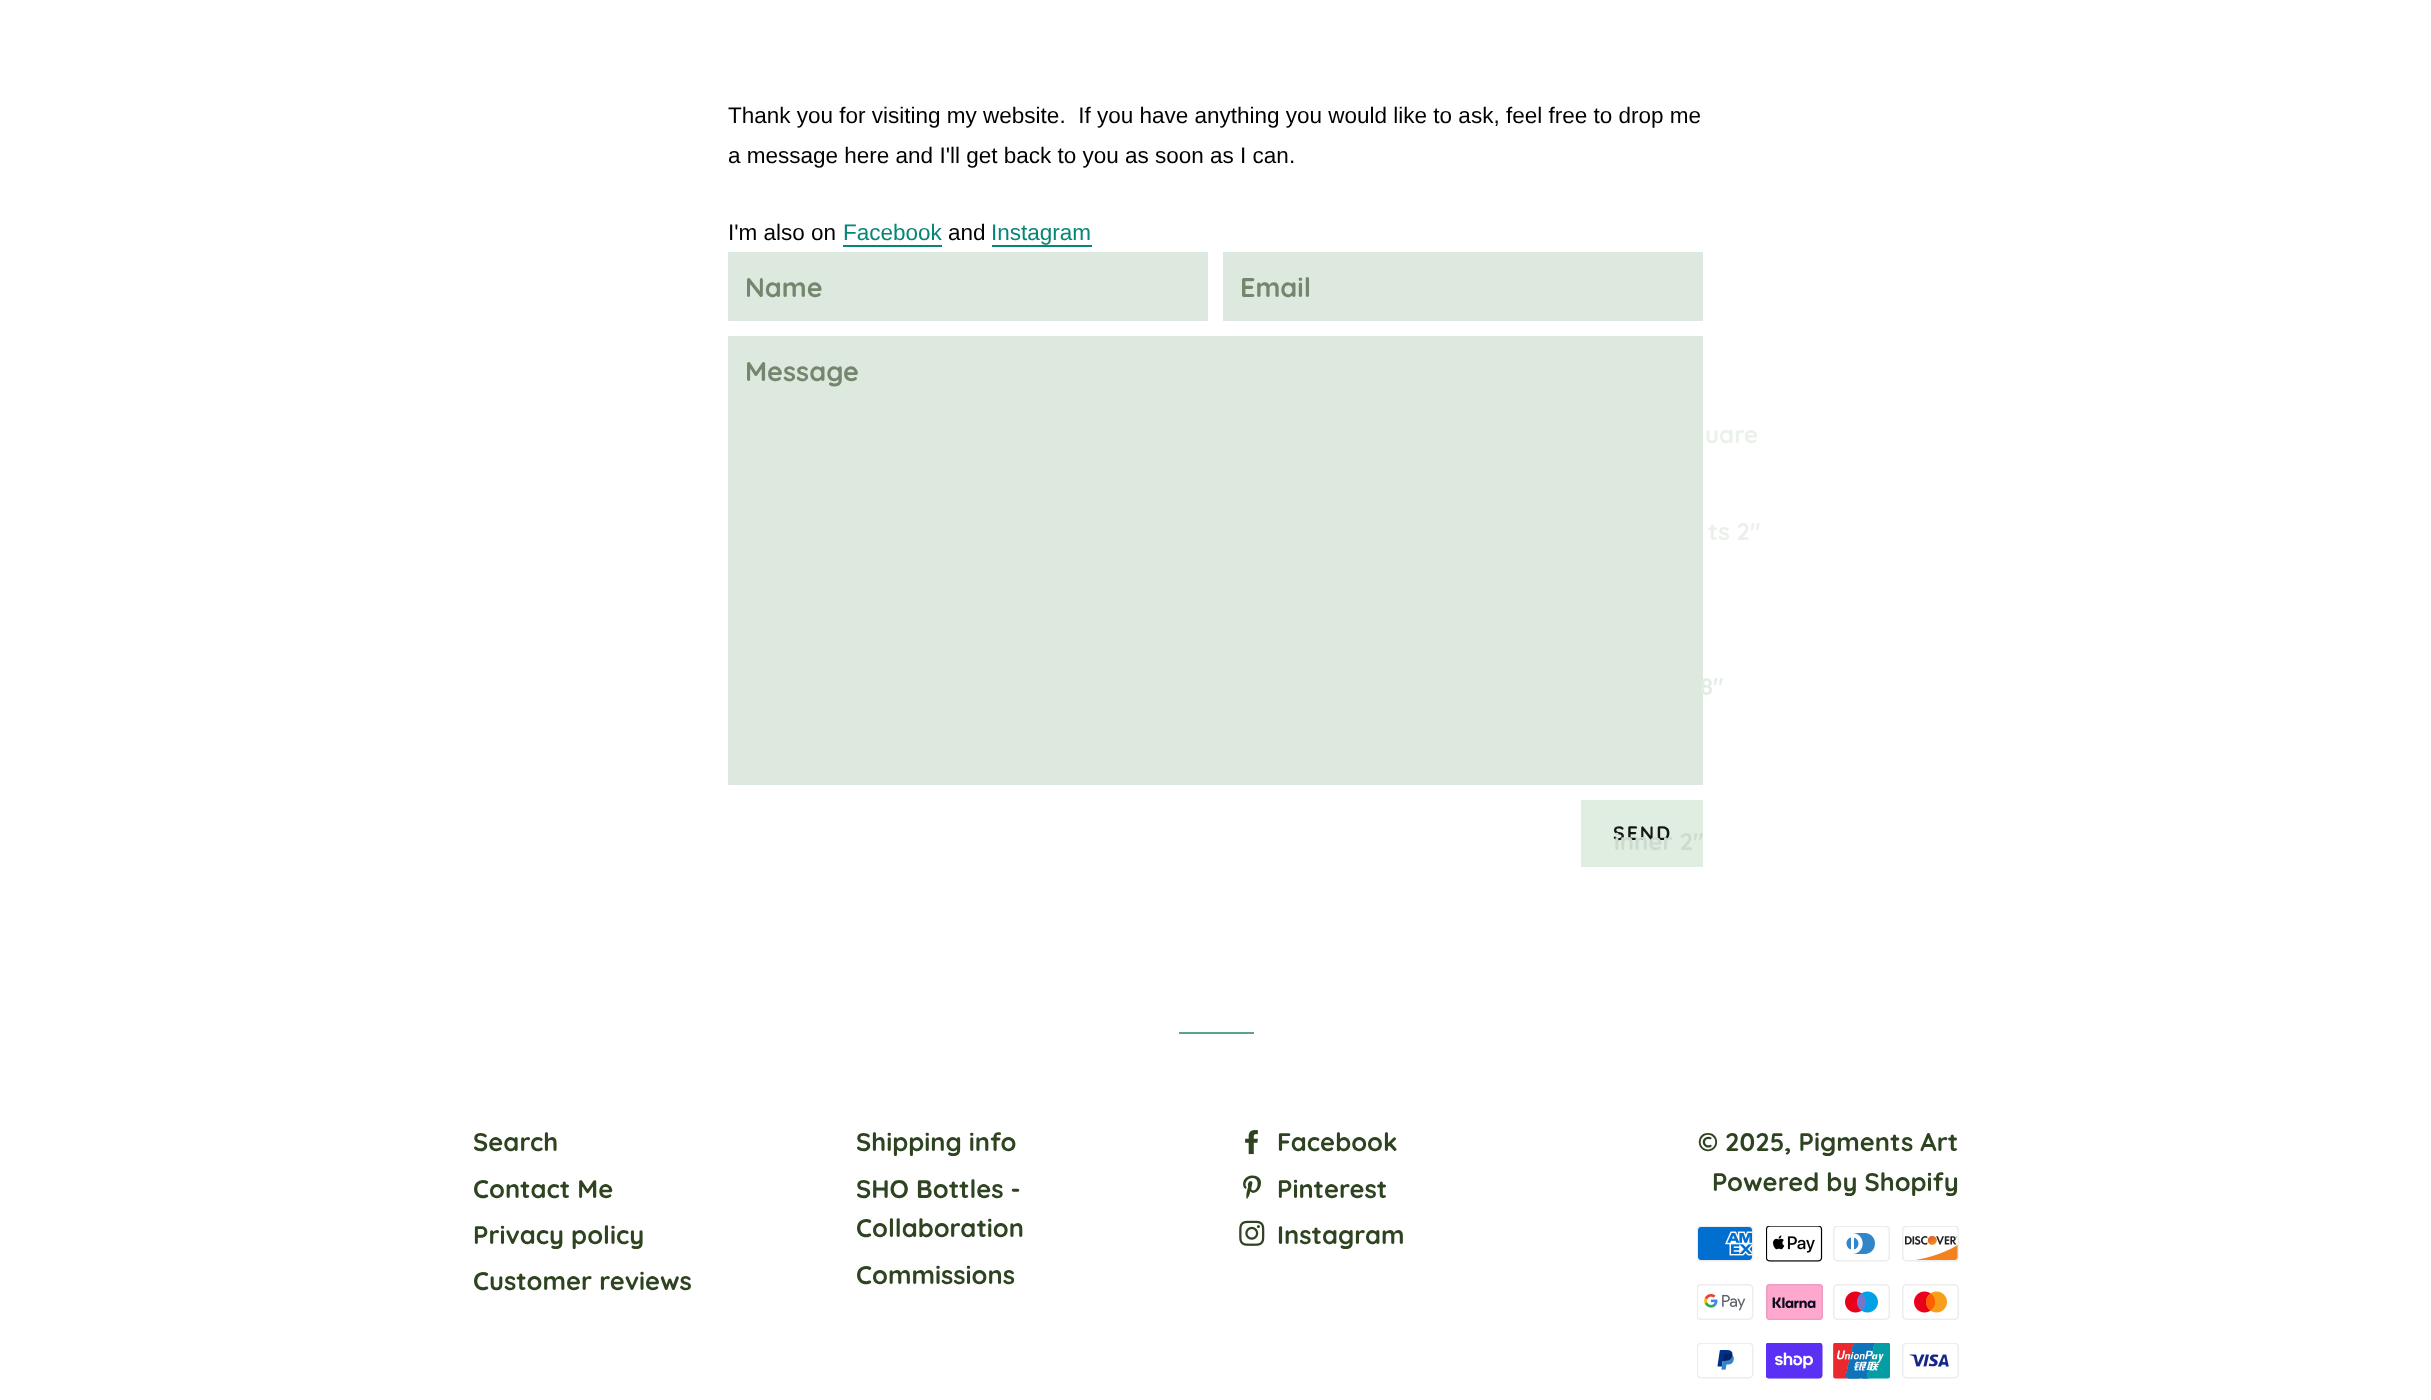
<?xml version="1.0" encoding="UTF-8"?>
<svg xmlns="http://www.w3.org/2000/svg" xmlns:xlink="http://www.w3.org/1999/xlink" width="2431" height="1400">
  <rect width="100%" height="100%" fill="#ffffff" />
  <rect x="843" y="245" width="99" height="2" fill="#058677" />
  <rect x="992" y="245" width="100" height="2" fill="#058677" />
  <rect x="728" y="252" width="480" height="69" fill="#dde9de" />
  <rect x="1223" y="252" width="480" height="69" fill="#dde9de" />
  <rect x="728" y="336" width="975" height="449" fill="#dde9de" />
  <rect x="1581" y="800" width="122" height="67" fill="#e0eee1" />
  <rect x="1179" y="1032" width="75" height="2" fill="#5da290" />
  <image x="1245" y="1130" width="13" height="25" xlink:href="image1.png" />
  <image x="1243" y="1175" width="18" height="24" xlink:href="image2.png" />
  <image x="1239" y="1220" width="26" height="26" xlink:href="image3.png" />
  <image x="1697" y="1226" width="57" height="36" xlink:href="image4.png" />
  <image x="1766" y="1226" width="57" height="36" xlink:href="image5.png" />
  <image x="1833" y="1226" width="57" height="36" xlink:href="image6.png" />
  <image x="1902" y="1226" width="57" height="36" xlink:href="image7.png" />
  <image x="1697" y="1284" width="57" height="36" xlink:href="image8.png" />
  <image x="1766" y="1284" width="57" height="36" xlink:href="image9.png" />
  <image x="1833" y="1284" width="57" height="36" xlink:href="image10.png" />
  <image x="1902" y="1284" width="57" height="36" xlink:href="image11.png" />
  <image x="1697" y="1343" width="57" height="36" xlink:href="image12.png" />
  <image x="1766" y="1343" width="57" height="36" xlink:href="image13.png" />
  <image x="1833" y="1343" width="57" height="36" xlink:href="image14.png" />
  <image x="1902" y="1343" width="57" height="36" xlink:href="image15.png" />
  <text x="728" y="123" style="font-family: Liberation Sans; font-size: 22.5px; fill: #000000" xml:space="preserve">Thank you for visiting my website.  If you have anything you would like to ask, feel free to drop me</text>
  <text x="728" y="163" style="font-family: Liberation Sans; font-size: 22.5px; fill: #000000">a message here and I'll get back to you as soon as I can.</text>
  <text x="728" y="240" style="font-family: Liberation Sans; font-size: 22.5px; fill: #000000">I'm also on</text>
  <text x="843" y="240" style="font-family: Liberation Sans; font-size: 22.5px; fill: #058677">Facebook</text>
  <text x="948" y="240" style="font-family: Liberation Sans; font-size: 22.5px; fill: #000000">and</text>
  <text x="991" y="240" style="font-family: Liberation Sans; font-size: 22.5px; fill: #058677">Instagram</text>
  <text x="745" y="297" style="font-family: Quicksand; font-size: 27px; font-weight: bold; fill: #74866d">Name</text>
  <text x="1240" y="297" style="font-family: Quicksand; font-size: 27px; font-weight: bold; fill: #74866d">Email</text>
  <text x="745" y="381" style="font-family: Quicksand; font-size: 27px; font-weight: bold; fill: #74866d">Message</text>
  <text x="1613" y="840" style="font-family: Quicksand; font-size: 19.5px; font-weight: bold; letter-spacing: 2px; fill: #151715">SEND</text>
  <text x="473" y="1151" style="font-family: Quicksand; font-size: 25.5px; font-weight: bold; fill: #2e4421">Search</text>
  <text x="473" y="1198" style="font-family: Quicksand; font-size: 25.5px; font-weight: bold; fill: #2e4421">Contact Me</text>
  <text x="473" y="1244" style="font-family: Quicksand; font-size: 25.5px; font-weight: bold; fill: #2e4421">Privacy policy</text>
  <text x="473" y="1290" style="font-family: Quicksand; font-size: 25.5px; font-weight: bold; fill: #2e4421">Customer reviews</text>
  <text x="856" y="1151" style="font-family: Quicksand; font-size: 25.5px; font-weight: bold; fill: #2e4421">Shipping info</text>
  <text x="856" y="1198" style="font-family: Quicksand; font-size: 25.5px; font-weight: bold; fill: #2e4421">SHO Bottles -</text>
  <text x="856" y="1237" style="font-family: Quicksand; font-size: 25.5px; font-weight: bold; fill: #2e4421">Collaboration</text>
  <text x="856" y="1284" style="font-family: Quicksand; font-size: 25.5px; font-weight: bold; fill: #2e4421">Commissions</text>
  <text x="1277" y="1151" style="font-family: Quicksand; font-size: 25.5px; font-weight: bold; fill: #2e4421">Facebook</text>
  <text x="1277" y="1198" style="font-family: Quicksand; font-size: 25.5px; font-weight: bold; fill: #2e4421">Pinterest</text>
  <text x="1277" y="1244" style="font-family: Quicksand; font-size: 25.5px; font-weight: bold; fill: #2e4421">Instagram</text>
  <text x="1698" y="1151" style="font-family: Quicksand; font-size: 25.5px; font-weight: bold; fill: #2e4421">© 2025, Pigments Art</text>
  <text x="1712" y="1191" style="font-family: Quicksand; font-size: 25.5px; font-weight: bold; fill: #2e4421">Powered by Shopify</text>
  <text x="1705" y="443" style="font-family: Quicksand; font-size: 24px; font-weight: bold; fill: #e9f1ea">uare</text>
  <text x="1708" y="540" style="font-family: Quicksand; font-size: 24px; font-weight: bold; fill: #e9f1ea">ts 2"</text>
  <text x="1700" y="695" style="font-family: Quicksand; font-size: 24px; font-weight: bold; fill: #e3ede4">8"</text>
  <text x="1614" y="850" style="font-family: Quicksand; font-size: 24px; font-weight: bold; fill: #cddace">inner 2"</text>
</svg>
